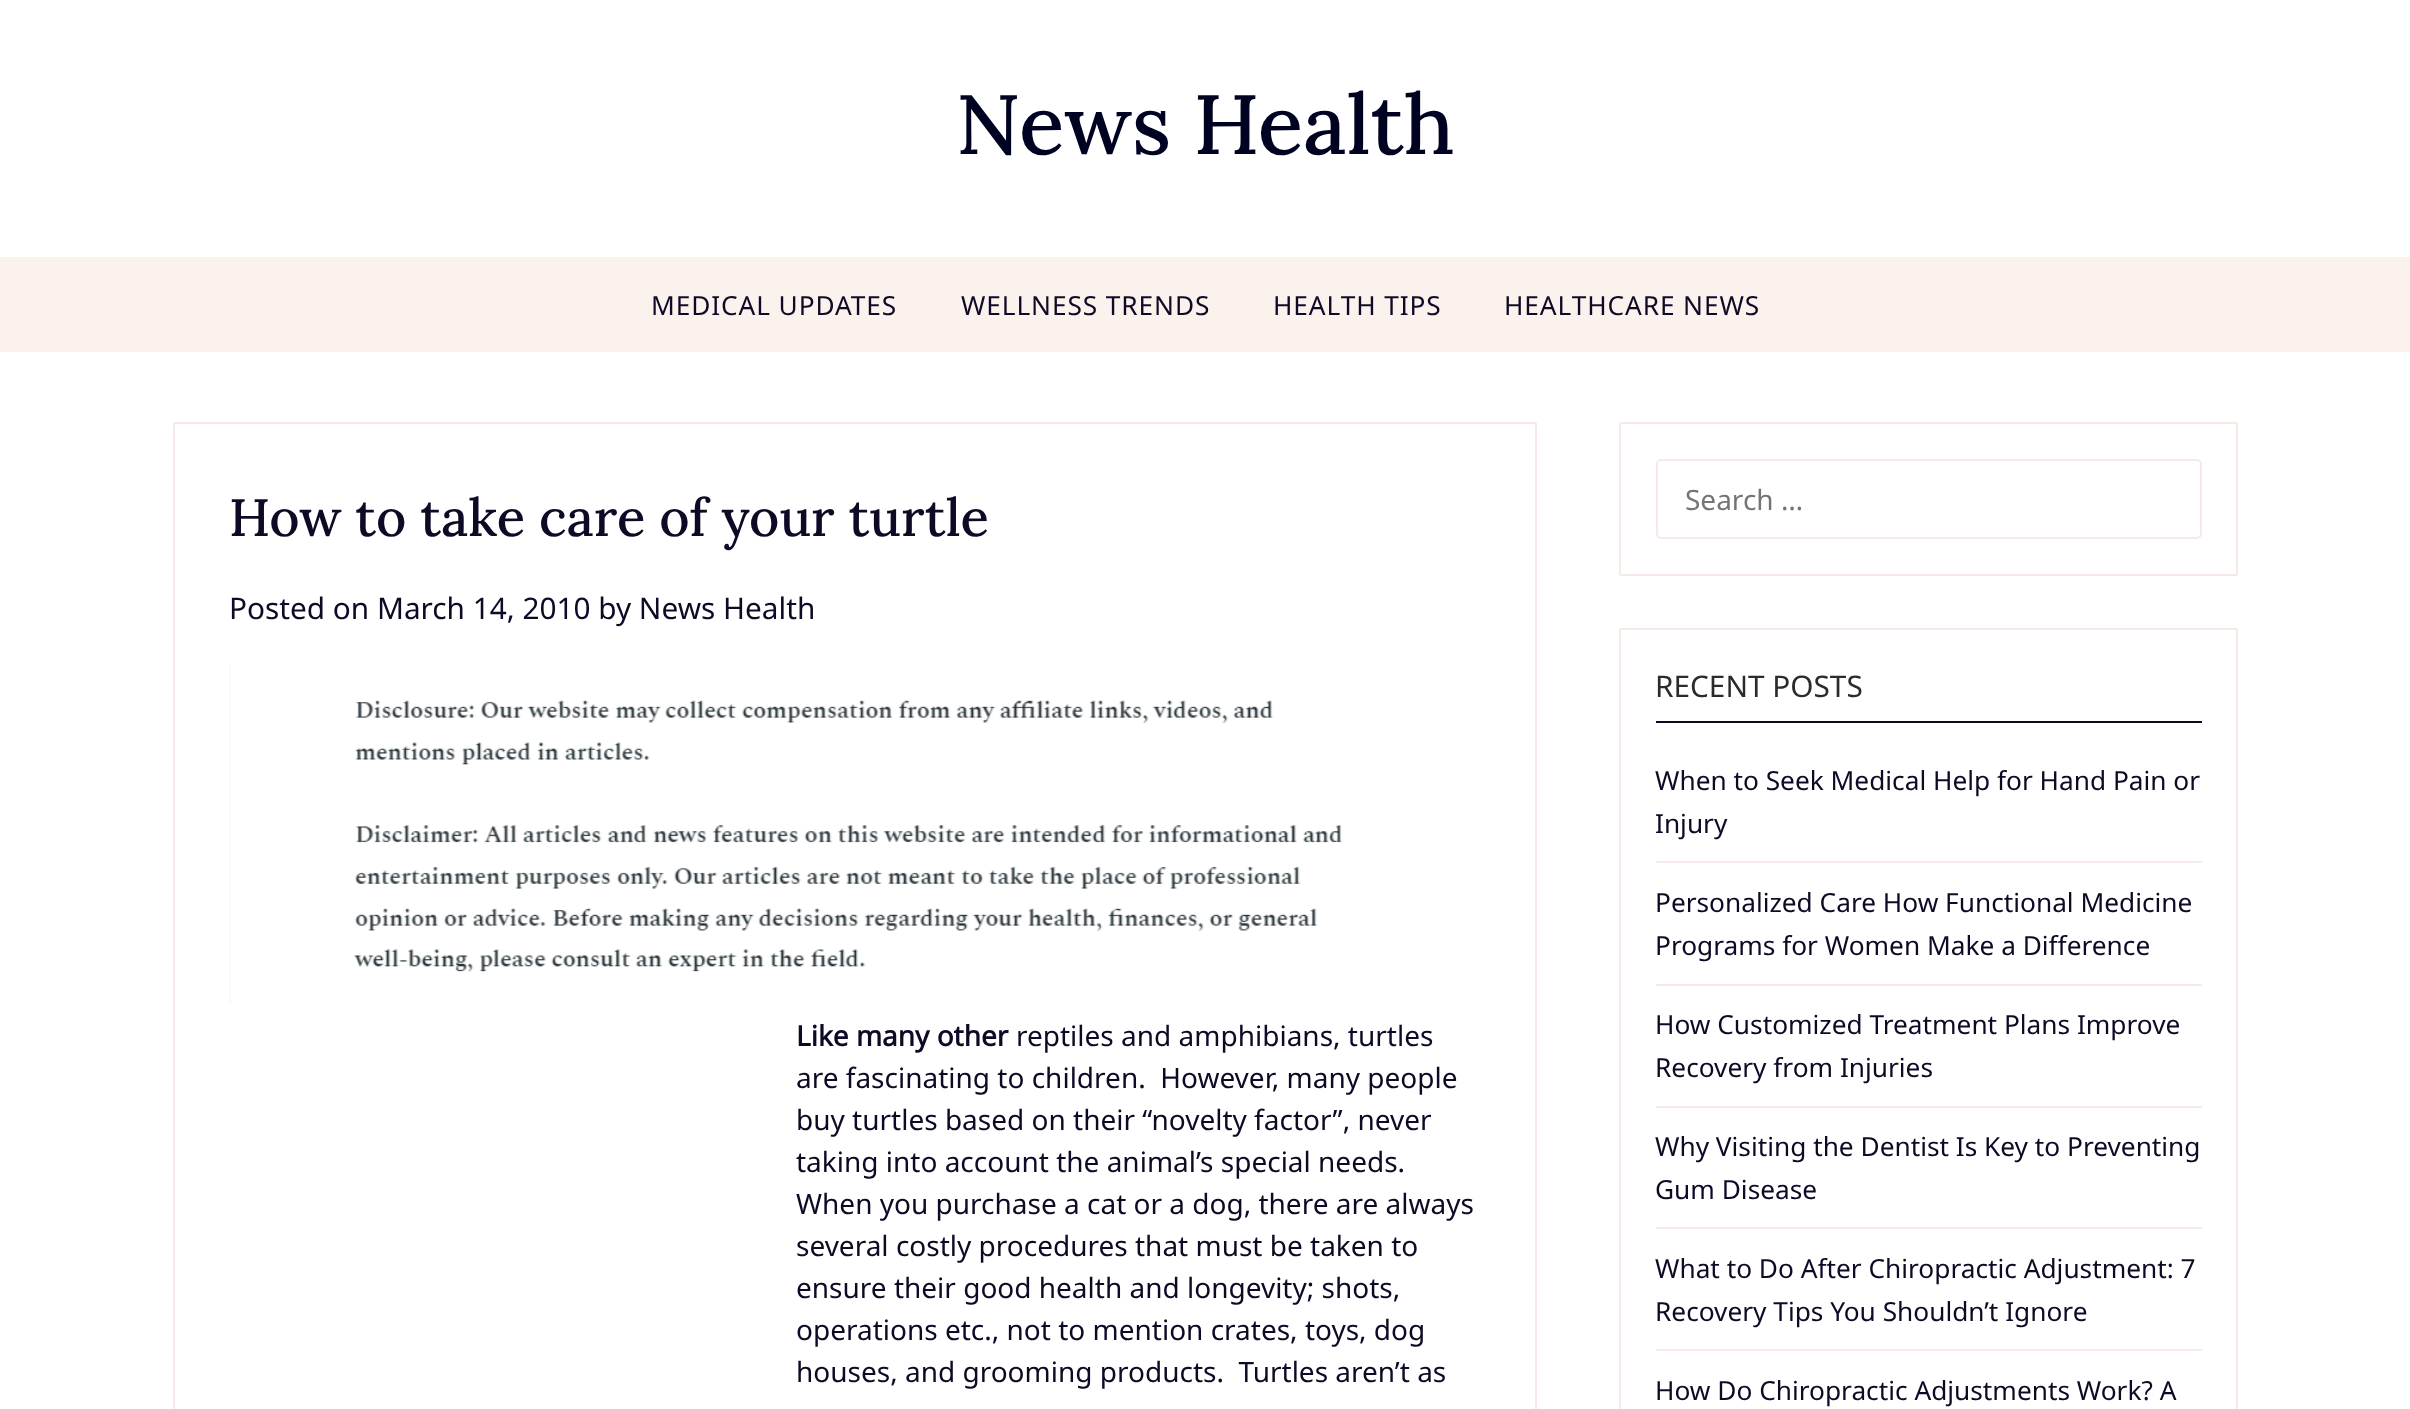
<?xml version="1.0" encoding="UTF-8"?>
<svg xmlns="http://www.w3.org/2000/svg" xmlns:xlink="http://www.w3.org/1999/xlink" width="2410" height="1409">
  <rect width="100%" height="100%" fill="#ffffff" />
  <rect y="257" width="2410" height="95" fill="#fbf2ee" />
  <rect x="174" y="423" width="1362" height="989" rx="1" fill="none" stroke="#f5eae5" stroke-width="2" />
  <image x="229" y="665" width="1114" height="339" xlink:href="image1.png" />
  <rect x="1620" y="423" width="617" height="152" rx="1" fill="none" stroke="#f5eae5" stroke-width="2" />
  <rect x="1657" y="460" width="544" height="78" rx="4" fill="none" stroke="#f5eae5" stroke-width="2" />
  <rect x="1620" y="629" width="617" height="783" rx="1" fill="none" stroke="#f5eae5" stroke-width="2" />
  <rect x="1656" y="721" width="546" height="2" fill="#0e0925" />
  <rect x="1656" y="861" width="546" height="2" fill="#f5eae5" />
  <rect x="1656" y="984" width="546" height="2" fill="#f5eae5" />
  <rect x="1656" y="1106" width="546" height="2" fill="#f5eae5" />
  <rect x="1656" y="1227" width="546" height="2" fill="#f5eae5" />
  <rect x="1656" y="1349" width="546" height="2" fill="#f5eae5" />
  <text x="956" y="154" style="font-family: Lora; font-size: 84px; font-weight: 500; fill: #000222">News Health</text>
  <text x="651" y="315" style="font-family: Noto Sans; font-size: 26.25px; letter-spacing: 0.9px; fill: #0e0925">MEDICAL UPDATES</text>
  <text x="961" y="315" style="font-family: Noto Sans; font-size: 26.25px; letter-spacing: 0.9px; fill: #0e0925">WELLNESS TRENDS</text>
  <text x="1273" y="315" style="font-family: Noto Sans; font-size: 26.25px; letter-spacing: 0.9px; fill: #0e0925">HEALTH TIPS</text>
  <text x="1504" y="315" style="font-family: Noto Sans; font-size: 26.25px; letter-spacing: 0.9px; fill: #0e0925">HEALTHCARE NEWS</text>
  <text x="229" y="536" style="font-family: Lora; font-size: 52.5px; font-weight: 500; fill: #0e0925">How to take care of your turtle</text>
  <text x="229" y="619" style="font-family: Noto Sans; font-size: 29.75px; fill: #0e0925">Posted on March 14, 2010 by News Health</text>
  <text x="796" y="1046" style="font-family: Noto Sans; font-size: 28px; font-weight: bold; fill: #0e0925">Like many other</text>
  <text x="1016" y="1046" style="font-family: Noto Sans; font-size: 28px; fill: #0e0925">reptiles and amphibians, turtles</text>
  <text x="796" y="1088" style="font-family: Noto Sans; font-size: 28px; fill: #0e0925" xml:space="preserve">are fascinating to children.  However, many people</text>
  <text x="796" y="1130" style="font-family: Noto Sans; font-size: 28px; fill: #0e0925">buy turtles based on their “novelty factor”, never</text>
  <text x="796" y="1172" style="font-family: Noto Sans; font-size: 28px; fill: #0e0925">taking into account the animal’s special needs.</text>
  <text x="796" y="1214" style="font-family: Noto Sans; font-size: 28px; fill: #0e0925">When you purchase a cat or a dog, there are always</text>
  <text x="796" y="1256" style="font-family: Noto Sans; font-size: 28px; fill: #0e0925">several costly procedures that must be taken to</text>
  <text x="796" y="1298" style="font-family: Noto Sans; font-size: 28px; fill: #0e0925">ensure their good health and longevity; shots,</text>
  <text x="796" y="1340" style="font-family: Noto Sans; font-size: 28px; fill: #0e0925">operations etc., not to mention crates, toys, dog</text>
  <text x="796" y="1382" style="font-family: Noto Sans; font-size: 28px; fill: #0e0925" xml:space="preserve">houses, and grooming products.  Turtles aren’t as</text>
  <text x="1685" y="510" style="font-family: Noto Sans; font-size: 28px; fill: #757575">Search …</text>
  <text x="1655" y="697" style="font-family: Noto Sans; font-size: 29.75px; fill: #2b2b2b">RECENT POSTS</text>
  <text x="1655" y="790" style="font-family: Noto Sans; font-size: 26.25px; fill: #0e0925">When to Seek Medical Help for Hand Pain or</text>
  <text x="1655" y="833" style="font-family: Noto Sans; font-size: 26.25px; fill: #0e0925">Injury</text>
  <text x="1655" y="912" style="font-family: Noto Sans; font-size: 26.25px; fill: #0e0925">Personalized Care How Functional Medicine</text>
  <text x="1655" y="955" style="font-family: Noto Sans; font-size: 26.25px; fill: #0e0925">Programs for Women Make a Difference</text>
  <text x="1655" y="1034" style="font-family: Noto Sans; font-size: 26.25px; fill: #0e0925">How Customized Treatment Plans Improve</text>
  <text x="1655" y="1077" style="font-family: Noto Sans; font-size: 26.25px; fill: #0e0925">Recovery from Injuries</text>
  <text x="1655" y="1156" style="font-family: Noto Sans; font-size: 26.25px; fill: #0e0925">Why Visiting the Dentist Is Key to Preventing</text>
  <text x="1655" y="1199" style="font-family: Noto Sans; font-size: 26.25px; fill: #0e0925">Gum Disease</text>
  <text x="1655" y="1278" style="font-family: Noto Sans; font-size: 26.25px; fill: #0e0925">What to Do After Chiropractic Adjustment: 7</text>
  <text x="1655" y="1321" style="font-family: Noto Sans; font-size: 26.25px; fill: #0e0925">Recovery Tips You Shouldn’t Ignore</text>
  <text x="1655" y="1400" style="font-family: Noto Sans; font-size: 26.25px; fill: #0e0925">How Do Chiropractic Adjustments Work? A</text>
</svg>
